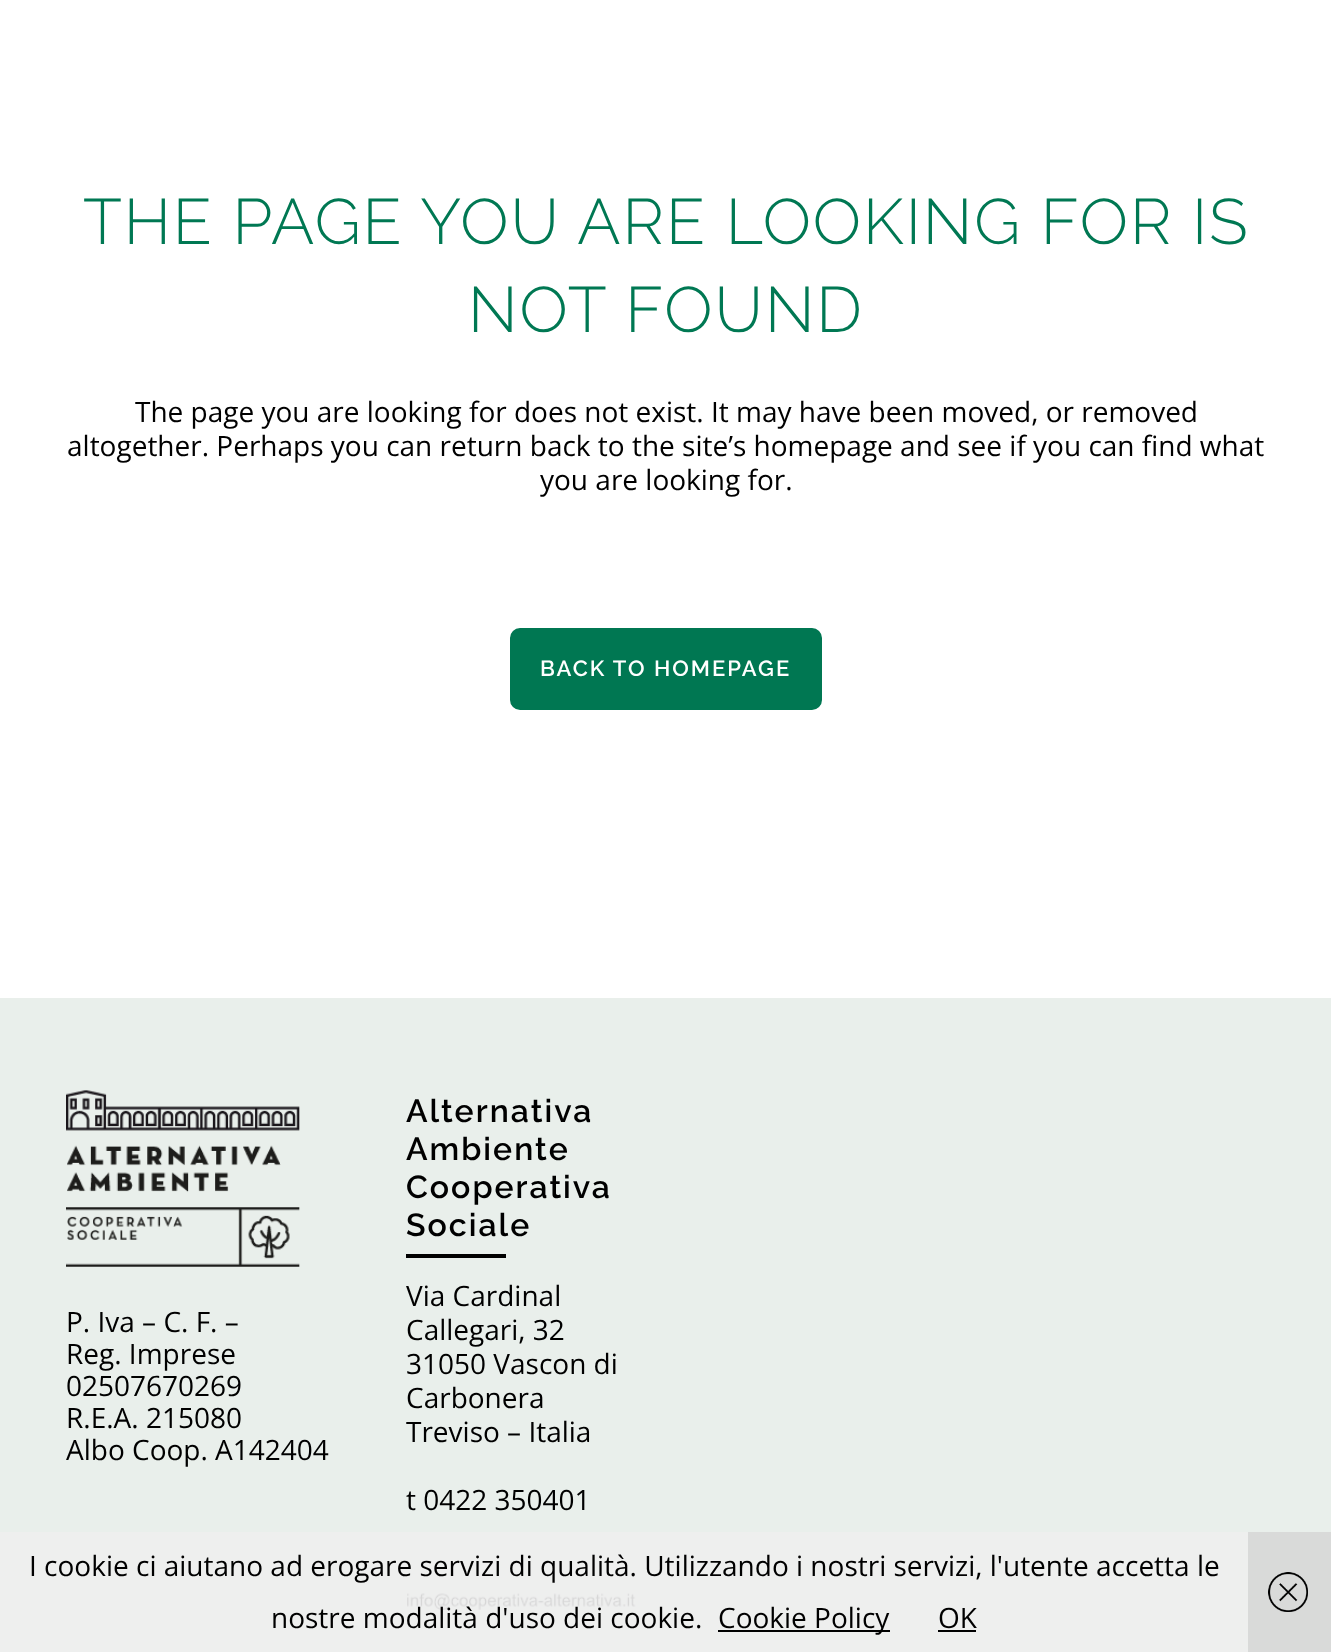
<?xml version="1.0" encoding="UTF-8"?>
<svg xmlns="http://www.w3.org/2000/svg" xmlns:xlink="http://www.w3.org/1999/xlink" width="1331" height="1652">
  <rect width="100%" height="100%" fill="#ffffff" />
  <rect x="511" y="629" width="310" height="80" rx="9" fill="#007752" stroke="#007752" stroke-width="2" />
  <rect y="998" width="1331" height="654" fill="#e9efeb" />
  <image x="66" y="1090" width="234" height="177" xlink:href="image1.png" />
  <rect x="406" y="1254" width="100" height="4" fill="#000000" />
  <image x="407" y="1593" width="229" height="17" xlink:href="image2.png" />
  <rect y="1532" width="1248" height="120" fill="#eeeeee" fill-opacity="0.9" />
  <rect x="718" y="1630" width="172" height="2" fill="#000000" />
  <rect x="938" y="1630" width="38" height="2" fill="#000000" />
  <rect x="1248" y="1532" width="83" height="120" fill="#d9dad9" />
  <image x="1268" y="1572" width="40" height="40" xlink:href="image3.png" />
  <text x="83" y="244" style="font-family: Raleway; font-size: 64px; font-weight: 300; letter-spacing: 2px; fill: #007853">THE PAGE YOU ARE LOOKING FOR IS</text>
  <text x="468" y="332" style="font-family: Raleway; font-size: 64px; font-weight: 300; letter-spacing: 2px; fill: #007853">NOT FOUND</text>
  <text x="135" y="422" style="font-family: Open Sans; font-size: 28px; fill: #000000">The page you are looking for does not exist. It may have been moved, or removed</text>
  <text x="67" y="456" style="font-family: Open Sans; font-size: 28px; fill: #000000">altogether. Perhaps you can return back to the site’s homepage and see if you can find what</text>
  <text x="540" y="490" style="font-family: Open Sans; font-size: 28px; fill: #000000">you are looking for.</text>
  <text x="540" y="676" style="font-family: Raleway; font-size: 22px; font-weight: 600; letter-spacing: 2px; fill: #ffffff">BACK TO HOMEPAGE</text>
  <text x="66" y="1332" style="font-family: Open Sans; font-size: 28px; fill: #000000">P. Iva – C. F. –</text>
  <text x="66" y="1364" style="font-family: Open Sans; font-size: 28px; fill: #000000">Reg. Imprese</text>
  <text x="66" y="1396" style="font-family: Open Sans; font-size: 28px; fill: #000000">02507670269</text>
  <text x="66" y="1428" style="font-family: Open Sans; font-size: 28px; fill: #000000">R.E.A. 215080</text>
  <text x="66" y="1460" style="font-family: Open Sans; font-size: 28px; fill: #000000">Albo Coop. A142404</text>
  <text x="406" y="1122" style="font-family: Raleway; font-size: 32px; font-weight: 600; letter-spacing: 2px; fill: #000000">Alternativa</text>
  <text x="406" y="1160" style="font-family: Raleway; font-size: 32px; font-weight: 600; letter-spacing: 2px; fill: #000000">Ambiente</text>
  <text x="406" y="1198" style="font-family: Raleway; font-size: 32px; font-weight: 600; letter-spacing: 2px; fill: #000000">Cooperativa</text>
  <text x="406" y="1236" style="font-family: Raleway; font-size: 32px; font-weight: 600; letter-spacing: 2px; fill: #000000">Sociale</text>
  <text x="406" y="1306" style="font-family: Open Sans; font-size: 28px; fill: #000000">Via Cardinal</text>
  <text x="406" y="1340" style="font-family: Open Sans; font-size: 28px; fill: #000000">Callegari, 32</text>
  <text x="406" y="1374" style="font-family: Open Sans; font-size: 28px; fill: #000000">31050 Vascon di</text>
  <text x="406" y="1408" style="font-family: Open Sans; font-size: 28px; fill: #000000">Carbonera</text>
  <text x="406" y="1442" style="font-family: Open Sans; font-size: 28px; fill: #000000">Treviso – Italia</text>
  <text x="406" y="1510" style="font-family: Open Sans; font-size: 28px; fill: #000000">t 0422 350401</text>
  <text x="29" y="1576" style="font-family: Open Sans; font-size: 28px; fill: #000000">I cookie ci aiutano ad erogare servizi di qualità. Utilizzando i nostri servizi, l'utente accetta le</text>
  <text x="271" y="1628" style="font-family: Open Sans; font-size: 28px; fill: #000000">nostre modalità d'uso dei cookie.</text>
  <text x="718" y="1628" style="font-family: Open Sans; font-size: 28px; fill: #000000">Cookie Policy</text>
  <text x="938" y="1628" style="font-family: Open Sans; font-size: 28px; fill: #000000">OK</text>
</svg>
